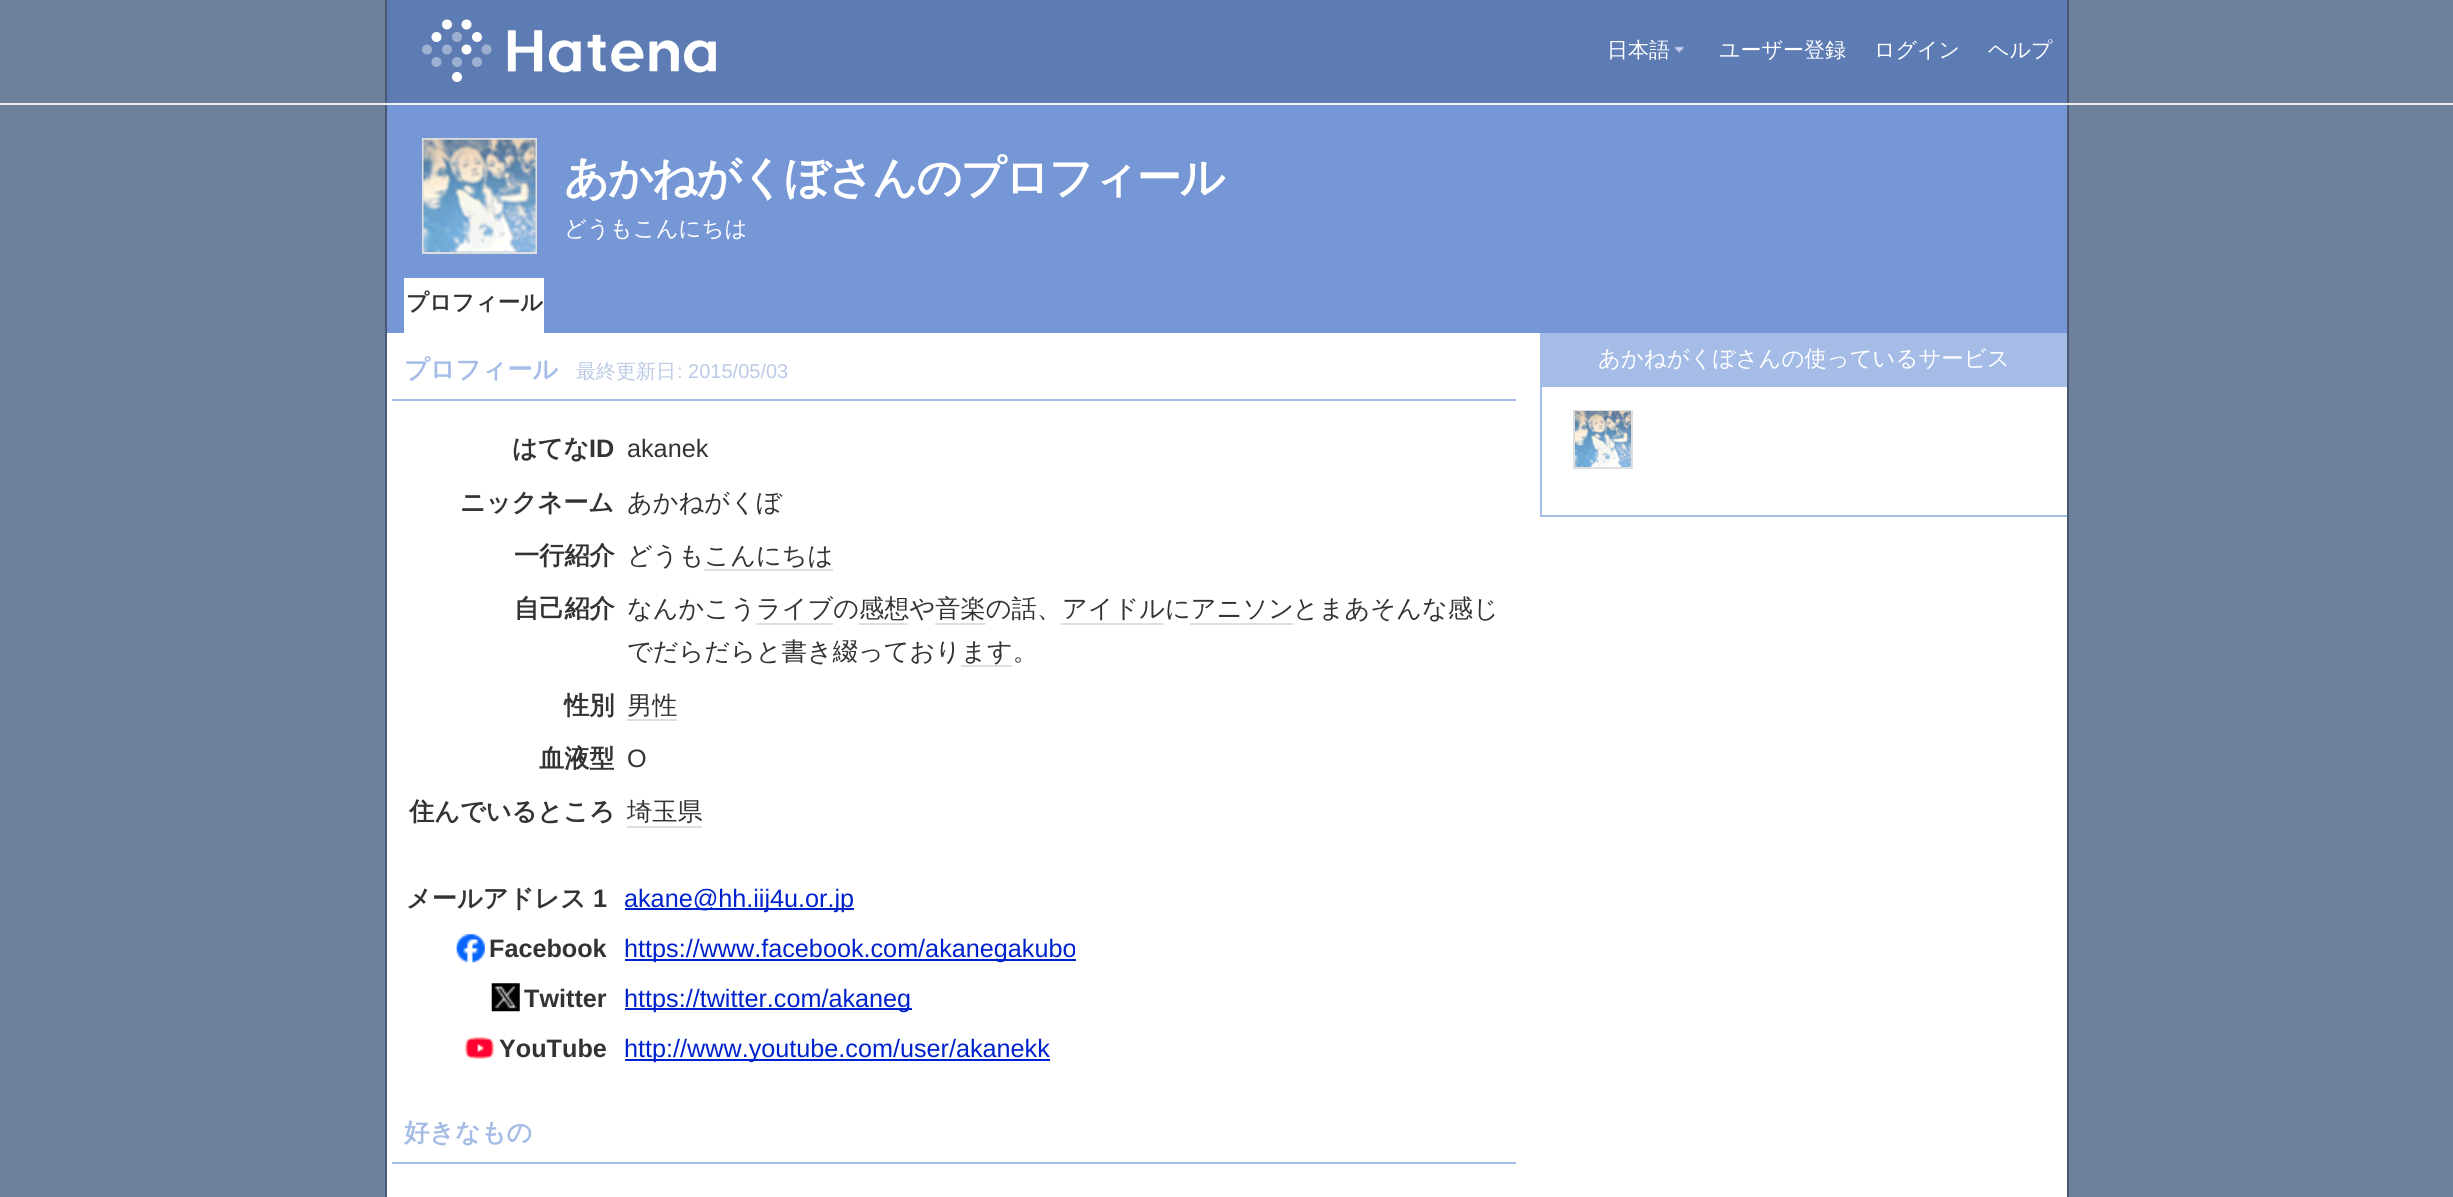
#include <cairo.h>
#include <math.h>
#include <stddef.h>

typedef struct { const char *family; double size; int italic, bold; unsigned color; } style_t;
static cairo_t *ctx;

static void ink(unsigned color) {
    cairo_set_source_rgb(ctx, (color >> 16) / 255.0, (color >> 8 & 255) / 255.0, (color & 255) / 255.0);
}

static void write(double x, double y, const char *s, const style_t *st) {
    cairo_select_font_face(ctx, st->family, st->italic ? CAIRO_FONT_SLANT_ITALIC : CAIRO_FONT_SLANT_NORMAL,
        st->bold ? CAIRO_FONT_WEIGHT_BOLD : CAIRO_FONT_WEIGHT_NORMAL);
    cairo_set_font_size(ctx, st->size);
    ink(st->color);
    cairo_move_to(ctx, x, y);
    cairo_show_text(ctx, s);
}

static void write_spaced(double x, double y, const char *s, double letter, double word) {
    cairo_move_to(ctx, x, y);
    while (*s) {
        char ch[5] = {0};
        int n = 0;
        do ch[n++] = *s++; while ((*s & 0xC0) == 0x80);
        cairo_show_text(ctx, ch);
        cairo_rel_move_to(ctx, letter + word * (*ch == ' '), 0);
    }
}

static void block(double x, double y, double w, double h, unsigned color) {
    ink(color);
    cairo_rectangle(ctx, x, y, w, h);
    cairo_fill(ctx);
}

static void paste(const char *path, double x, double y, double w, double h) {
    cairo_surface_t *image = cairo_image_surface_create_from_png(path);
    cairo_save(ctx);
    cairo_set_source_surface(ctx, image, x, y);
    cairo_rectangle(ctx, x, y, w, h);
    cairo_fill(ctx);
    cairo_restore(ctx);
    cairo_surface_destroy(image);
}

static const style_t s1 = {"WenQuanYi Zen Hei Medium", 21, 0, 0, 0xffffff};
static const style_t s2 = {"WenQuanYi Zen Hei Medium", 22.4, 0, 0, 0xffffff};
static const style_t s3 = {"WenQuanYi Zen Hei", 22.4, 0, 1, 0x333333};
static const style_t s4 = {"WenQuanYi Zen Hei", 25.2, 0, 1, 0xa5bce7};
static const style_t s5 = {"WenQuanYi Zen Hei Medium", 20, 0, 0, 0xbbcae6};
static const style_t s6 = {"Liberation Sans", 20, 0, 0, 0xbbcae6};
static const style_t s7 = {"WenQuanYi Zen Hei", 25.2, 0, 1, 0x333333};
static const style_t s8 = {"Liberation Sans", 25.2, 0, 1, 0x333333};
static const style_t s9 = {"Liberation Sans", 25.2, 0, 0, 0x333333};
static const style_t s10 = {"WenQuanYi Zen Hei Medium", 25.2, 0, 0, 0x333333};
static const style_t s11 = {"Liberation Sans", 25.2, 0, 0, 0x0022cc};

int main(void) {
    cairo_surface_t *surface = cairo_image_surface_create(CAIRO_FORMAT_RGB24, 2453, 1197);
    ctx = cairo_create(surface);
    cairo_font_options_t *options = cairo_font_options_create();
    cairo_font_options_set_hint_metrics(options, CAIRO_HINT_METRICS_OFF);
    cairo_font_options_set_hint_style(options, CAIRO_HINT_STYLE_NONE);
    cairo_set_font_options(ctx, options);
    cairo_set_miter_limit(ctx, 4);
    ink(0x6d819c);
    cairo_paint(ctx);
    block(0, 103, 2453, 2, 0xf0f0f0);
    block(387, 0, 1680, 103, 0x5e7cb4);
    block(2067, 0, 2, 103, 0x4a5973);
    block(385, 0, 2, 103, 0x4a5973);
    paste("pic1.png", 422, 19, 294, 63);
    paste("pic2.png", 1674, 46, 10, 7);
    write(1607, 57, "日本語", &s1);
    write(1719, 57, "ユーザー登録", &s1);
    write(1874, 57, "ログイン", &s1);
    write(1988, 57, "ヘルプ", &s1);
    block(387, 105, 1680, 228, 0x7697d6);
    cairo_rectangle(ctx, 423, 139, 113, 114);
    ink(0xdedede);
    cairo_stroke(ctx);
    paste("pic3.png", 423, 139, 113, 113);
    cairo_select_font_face(ctx, "WenQuanYi Zen Hei", CAIRO_FONT_SLANT_NORMAL, CAIRO_FONT_WEIGHT_BOLD);
    cairo_set_font_size(ctx, 44.75);
    ink(0xffffff);
    write_spaced(564, 193, "あかねがくぼさんのプロフィール", -1.75, 0);
    write(564, 236, "どうもこんにちは", &s2);
    block(404, 278, 140, 55, 0xffffff);
    write(406, 310, "プロフィール", &s3);
    block(387, 333, 1680, 864, 0xffffff);
    block(2067, 105, 2, 1092, 0x4a5973);
    block(385, 105, 2, 1092, 0x4a5973);
    block(392, 399, 1124, 2, 0xa5bce7);
    write(404, 378, "プロフィール", &s4);
    write(576, 378, "最終更新日", &s5);
    write(677, 378, ": 2015/05/03", &s6);
    write(512, 457, "はてな", &s7);
    write(589, 457, "ID", &s8);
    write(627, 457, "akanek", &s9);
    write(460, 511, "ニックネーム", &s7);
    write(627, 511, "あかねがくぼ", &s10);
    write(514, 564, "一行紹介", &s7);
    write(627, 564, "どうもこんにちは", &s10);
    block(704, 569, 129, 2, 0xdedede);
    write(514, 617, "自己紹介", &s7);
    write(627, 617, "なんかこうライブの感想や音楽の話、アイドルにアニソン", &s10);
    write(1293, 617, "とまあそんな感じ", &s10);
    block(756, 623, 77, 2, 0xdedede);
    block(859, 623, 49, 2, 0xdedede);
    block(935, 623, 50, 2, 0xdedede);
    block(1061, 623, 103, 2, 0xdedede);
    block(1190, 623, 103, 2, 0xdedede);
    write(627, 660, "でだらだらと書き綴っております。", &s10);
    block(961, 665, 51, 2, 0xdedede);
    write(564, 714, "性別", &s7);
    write(627, 714, "男性", &s10);
    block(627, 719, 50, 2, 0xdedede);
    write(539, 767, "血液型", &s7);
    write(627, 767, "O", &s9);
    write(409, 820, "住んでいるところ", &s7);
    write(627, 820, "埼玉県", &s10);
    block(627, 826, 75, 2, 0xdedede);
    write(406, 907, "メールアドレス", &s7);
    write(593, 907, "1", &s8);
    block(625, 908, 229, 2, 0x0022cc);
    write(624, 907, "akane@hh.iij4u.or.jp", &s11);
    paste("pic4.png", 456, 934, 29, 29);
    write(489, 957, "Facebook", &s8);
    block(625, 959, 451, 2, 0x0022cc);
    write(624, 957, "https://www.facebook.com/akanegakubo", &s11);
    paste("pic5.png", 491, 983, 29, 29);
    write(524, 1007, "Twitter", &s8);
    block(625, 1008, 287, 2, 0x0022cc);
    write(624, 1007, "https://twitter.com/akaneg", &s11);
    paste("pic6.png", 465, 1037, 29, 22);
    write(499, 1057, "YouTube", &s8);
    block(625, 1059, 425, 2, 0x0022cc);
    write(624, 1057, "http://www.youtube.com/user/akanekk", &s11);
    block(392, 1162, 1124, 2, 0xa5bce7);
    write(404, 1141, "好きなもの", &s4);
    block(1540, 515, 527, 2, 0xa5bce7);
    block(1540, 333, 2, 183, 0xa5bce7);
    block(1542, 333, 525, 54, 0xa5bce7);
    write(1598, 366, "あかねがくぼさんの使っているサービス", &s2);
    cairo_rectangle(ctx, 1574, 411, 58, 57);
    ink(0xdedede);
    cairo_stroke(ctx);
    paste("pic7.png", 1575, 411, 56, 56);
    cairo_surface_write_to_png(surface, "screenshot.png");
    cairo_font_options_destroy(options);
    cairo_destroy(ctx);
    cairo_surface_destroy(surface);
    return 0;
}
